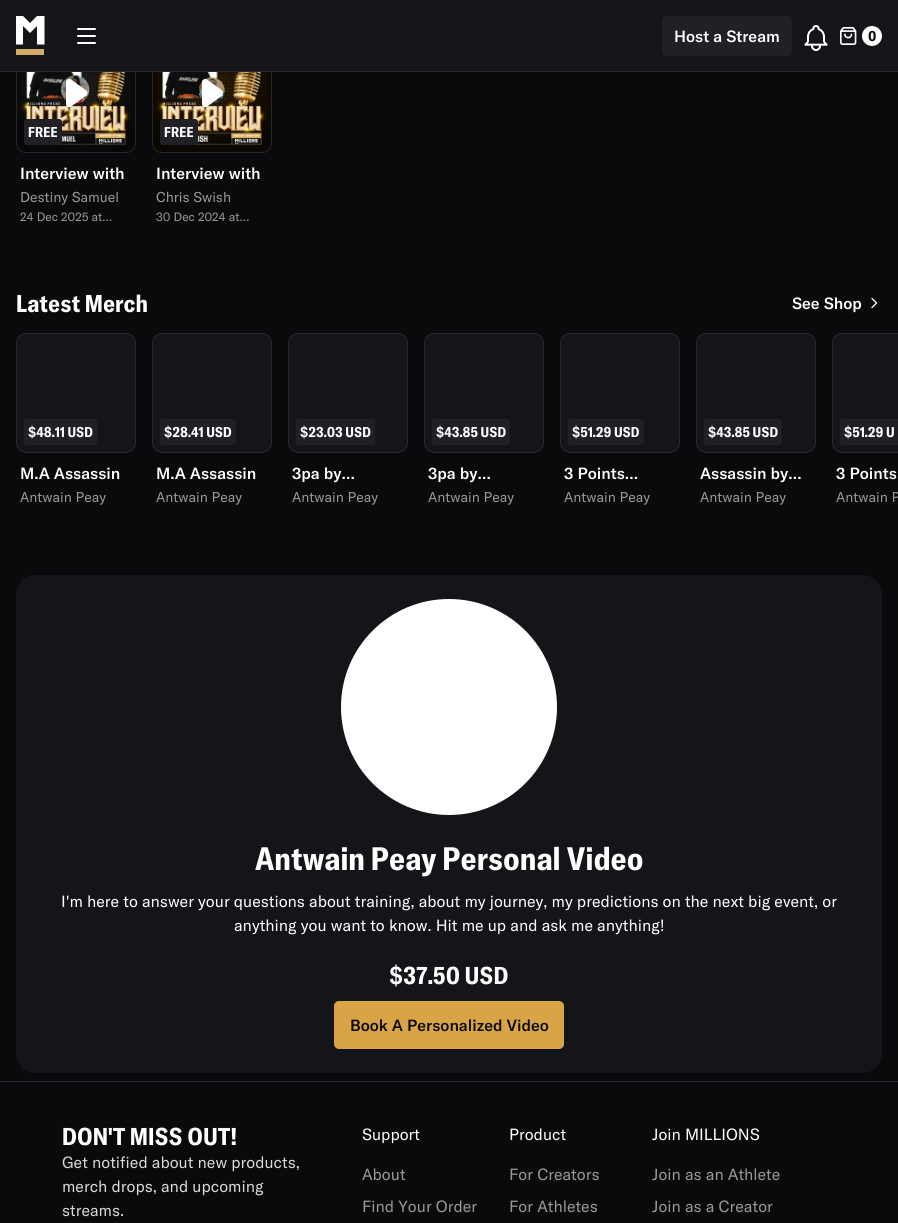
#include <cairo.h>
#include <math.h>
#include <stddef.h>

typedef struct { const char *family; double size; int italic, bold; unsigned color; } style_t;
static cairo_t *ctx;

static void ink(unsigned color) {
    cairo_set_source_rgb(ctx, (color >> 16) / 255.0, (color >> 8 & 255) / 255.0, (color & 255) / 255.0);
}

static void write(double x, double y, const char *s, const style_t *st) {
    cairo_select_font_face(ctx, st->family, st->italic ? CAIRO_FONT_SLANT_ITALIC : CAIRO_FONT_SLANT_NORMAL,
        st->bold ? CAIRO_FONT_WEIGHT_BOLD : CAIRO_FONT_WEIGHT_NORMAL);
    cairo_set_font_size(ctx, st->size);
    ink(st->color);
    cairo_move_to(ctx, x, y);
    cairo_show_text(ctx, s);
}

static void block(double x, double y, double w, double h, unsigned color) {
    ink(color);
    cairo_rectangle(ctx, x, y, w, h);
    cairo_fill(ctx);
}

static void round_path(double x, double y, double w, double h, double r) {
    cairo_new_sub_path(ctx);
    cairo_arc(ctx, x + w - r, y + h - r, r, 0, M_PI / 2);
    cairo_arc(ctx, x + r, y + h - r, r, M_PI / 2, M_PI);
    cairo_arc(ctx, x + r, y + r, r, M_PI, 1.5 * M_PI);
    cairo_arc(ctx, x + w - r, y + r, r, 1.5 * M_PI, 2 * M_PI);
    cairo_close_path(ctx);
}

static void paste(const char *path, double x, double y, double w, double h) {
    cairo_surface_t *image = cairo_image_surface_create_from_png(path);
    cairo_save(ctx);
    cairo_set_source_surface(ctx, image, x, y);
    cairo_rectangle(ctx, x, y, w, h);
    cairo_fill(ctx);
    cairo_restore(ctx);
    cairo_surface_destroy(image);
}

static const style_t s1 = {"GT America Medium", 16, 0, 0, 0xffffff};
static const style_t s2 = {"GT America", 14, 0, 1, 0x0a0a0c};
static const style_t s3 = {"GT America", 14, 0, 1, 0xffffff};
static const style_t s4 = {"GT America", 14, 0, 0, 0x999999};
static const style_t s5 = {"GT America", 12, 0, 0, 0x999999};
static const style_t s6 = {"GT America", 24, 0, 1, 0xffffff};
static const style_t s7 = {"GT America", 32, 0, 1, 0xffffff};
static const style_t s8 = {"GT America", 16, 0, 0, 0xffffff};
static const style_t s9 = {"GT America Medium", 16, 0, 0, 0x0a0a0c};
static const style_t s10 = {"GT America", 16, 0, 0, 0xd9d9d9};
static const style_t s11 = {"GT America", 16, 0, 0, 0x999999};

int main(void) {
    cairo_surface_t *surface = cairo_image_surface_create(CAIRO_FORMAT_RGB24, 898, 1223);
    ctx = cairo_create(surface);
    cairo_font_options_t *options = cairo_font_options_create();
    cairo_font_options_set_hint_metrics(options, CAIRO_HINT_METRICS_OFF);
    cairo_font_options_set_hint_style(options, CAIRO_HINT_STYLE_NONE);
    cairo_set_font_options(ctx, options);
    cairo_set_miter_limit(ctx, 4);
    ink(0x0a0a0c);
    cairo_paint(ctx);
    ink(0x141519);
    round_path(16.5, 33.5, 119, 119, 9.5);
    cairo_fill_preserve(ctx);
    ink(0x27282d);
    cairo_set_line_width(ctx, 1);
    cairo_stroke(ctx);
    ink(0x141519);
    round_path(152.5, 33.5, 119, 119, 9.5);
    cairo_fill_preserve(ctx);
    ink(0x27282d);
    cairo_stroke(ctx);
    block(0, 0, 898, 71, 0x141519);
    block(0, 71, 898, 1, 0x27282d);
    ink(0xffffff);
    cairo_new_path(ctx);
    cairo_move_to(ctx, 23, 16);
    cairo_line_to(ctx, 30, 23);
    cairo_line_to(ctx, 37, 16);
    cairo_line_to(ctx, 44.5, 16);
    cairo_line_to(ctx, 44.5, 44.5);
    cairo_line_to(ctx, 37, 44.5);
    cairo_line_to(ctx, 37, 26);
    cairo_line_to(ctx, 30, 33);
    cairo_line_to(ctx, 23, 26);
    cairo_line_to(ctx, 23, 44.5);
    cairo_line_to(ctx, 16, 44.5);
    cairo_line_to(ctx, 16, 16);
    cairo_close_path(ctx);
    cairo_fill(ctx);
    block(16, 49, 28, 6, 0xd2ab64);
    ink(0xffffff);
    round_path(77, 28, 19, 2, 1);
    cairo_fill(ctx);
    round_path(77, 35, 19, 2, 1);
    cairo_fill(ctx);
    round_path(77, 42, 19, 2, 1);
    cairo_fill(ctx);
    ink(0x202127);
    round_path(662, 16, 130, 40, 5);
    cairo_fill(ctx);
    write(674, 42, "Host a Stream", &s1);
    paste("pic1.png", 804, 25, 24, 26);
    paste("pic2.png", 840, 27, 17, 18);
    cairo_arc(ctx, 872, 36, 10, 0, 2 * M_PI);
    cairo_fill(ctx);
    write(868, 41, "0", &s2);
    paste("pic3.png", 17, 72, 118, 80);
    paste("pic4.png", 66, 79, 22, 28);
    ink(0x202127);
    round_path(24, 119, 38, 26, 3);
    cairo_fill(ctx);
    write(28, 137, "FREE", &s3);
    write(20, 179, "Interview with", &s1);
    write(20, 202, "Destiny Samuel", &s4);
    write(20, 221, "24 Dec 2025 at…", &s5);
    paste("pic5.png", 153, 72, 118, 80);
    paste("pic6.png", 202, 79, 22, 28);
    ink(0x202127);
    round_path(160, 119, 38, 26, 3);
    cairo_fill(ctx);
    write(164, 137, "FREE", &s3);
    write(156, 179, "Interview with", &s1);
    write(156, 202, "Chris Swish", &s4);
    write(156, 221, "30 Dec 2024 at…", &s5);
    write(16, 312, "Latest Merch", &s6);
    write(792, 309, "See Shop", &s1);
    cairo_new_path(ctx);
    cairo_move_to(ctx, 872, 298.5);
    cairo_line_to(ctx, 876.5, 303);
    cairo_line_to(ctx, 872, 307.5);
    cairo_set_line_width(ctx, 1.3);
    cairo_set_line_cap(ctx, CAIRO_LINE_CAP_ROUND);
    cairo_set_line_join(ctx, CAIRO_LINE_JOIN_ROUND);
    cairo_stroke(ctx);
    ink(0x141519);
    round_path(16.5, 333.5, 119, 119, 9.5);
    cairo_fill_preserve(ctx);
    ink(0x27282d);
    cairo_set_line_width(ctx, 1);
    cairo_set_line_cap(ctx, CAIRO_LINE_CAP_BUTT);
    cairo_set_line_join(ctx, CAIRO_LINE_JOIN_MITER);
    cairo_stroke(ctx);
    ink(0x202127);
    round_path(24, 419, 73, 26, 3);
    cairo_fill(ctx);
    write(28, 437, "$48.11 USD", &s3);
    write(20, 479, "M.A Assassin", &s1);
    write(20, 502, "Antwain Peay", &s4);
    ink(0x141519);
    round_path(152.5, 333.5, 119, 119, 9.5);
    cairo_fill_preserve(ctx);
    ink(0x27282d);
    cairo_stroke(ctx);
    ink(0x202127);
    round_path(160, 419, 76, 26, 3);
    cairo_fill(ctx);
    write(164, 437, "$28.41 USD", &s3);
    write(156, 479, "M.A Assassin", &s1);
    write(156, 502, "Antwain Peay", &s4);
    ink(0x141519);
    round_path(288.5, 333.5, 119, 119, 9.5);
    cairo_fill_preserve(ctx);
    ink(0x27282d);
    cairo_stroke(ctx);
    ink(0x202127);
    round_path(296, 419, 79, 26, 3);
    cairo_fill(ctx);
    write(300, 437, "$23.03 USD", &s3);
    write(292, 479, "3pa by…", &s1);
    write(292, 502, "Antwain Peay", &s4);
    ink(0x141519);
    round_path(424.5, 333.5, 119, 119, 9.5);
    cairo_fill_preserve(ctx);
    ink(0x27282d);
    cairo_stroke(ctx);
    ink(0x202127);
    round_path(432, 419, 78, 26, 3);
    cairo_fill(ctx);
    write(436, 437, "$43.85 USD", &s3);
    write(428, 479, "3pa by…", &s1);
    write(428, 502, "Antwain Peay", &s4);
    ink(0x141519);
    round_path(560.5, 333.5, 119, 119, 9.5);
    cairo_fill_preserve(ctx);
    ink(0x27282d);
    cairo_stroke(ctx);
    ink(0x202127);
    round_path(568, 419, 76, 26, 3);
    cairo_fill(ctx);
    write(572, 437, "$51.29 USD", &s3);
    write(564, 479, "3 Points…", &s1);
    write(564, 502, "Antwain Peay", &s4);
    ink(0x141519);
    round_path(696.5, 333.5, 119, 119, 9.5);
    cairo_fill_preserve(ctx);
    ink(0x27282d);
    cairo_stroke(ctx);
    ink(0x202127);
    round_path(704, 419, 78, 26, 3);
    cairo_fill(ctx);
    write(708, 437, "$43.85 USD", &s3);
    write(700, 479, "Assassin by…", &s1);
    write(700, 502, "Antwain Peay", &s4);
    ink(0x141519);
    cairo_new_path(ctx);
    cairo_move_to(ctx, 842, 333);
    cairo_line_to(ctx, 898, 333);
    cairo_line_to(ctx, 898, 453);
    cairo_line_to(ctx, 842, 453);
    cairo_curve_to(ctx, 836.5, 453, 832, 448.5, 832, 443);
    cairo_line_to(ctx, 832, 343);
    cairo_curve_to(ctx, 832, 337.5, 836.5, 333, 842, 333);
    cairo_close_path(ctx);
    cairo_fill(ctx);
    round_path(832.5, 333.5, 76, 119, 9.5);
    ink(0x27282d);
    cairo_stroke(ctx);
    ink(0x202127);
    cairo_new_path(ctx);
    cairo_move_to(ctx, 843, 419);
    cairo_line_to(ctx, 898, 419);
    cairo_line_to(ctx, 898, 445);
    cairo_line_to(ctx, 843, 445);
    cairo_curve_to(ctx, 841.5, 445, 840, 443.5, 840, 442);
    cairo_line_to(ctx, 840, 422);
    cairo_curve_to(ctx, 840, 420.5, 841.5, 419, 843, 419);
    cairo_close_path(ctx);
    cairo_fill(ctx);
    write(844, 437, "$51.29 U", &s3);
    write(836, 479, "3 Points", &s1);
    write(836, 502, "Antwain P", &s4);
    ink(0x141519);
    round_path(16, 575, 866, 498, 20);
    cairo_fill(ctx);
    ink(0xffffff);
    cairo_arc(ctx, 449, 707, 108, 0, 2 * M_PI);
    cairo_fill(ctx);
    write(255, 870, "Antwain Peay Personal Video", &s7);
    write(61, 907, "I'm here to answer your questions about training, about my journey, my predictions on the next big event, or", &s8);
    write(234, 931, "anything you want to know. Hit me up and ask me anything!", &s8);
    write(389, 984, "$37.50 USD", &s6);
    ink(0xd8a445);
    round_path(334, 1001, 230, 48, 5);
    cairo_fill(ctx);
    write(350, 1031, "Book A Personalized Video", &s9);
    block(0, 1081, 898, 1, 0x27282d);
    write(62, 1145, "DON'T MISS OUT!", &s6);
    write(62, 1168, "Get notified about new products,", &s10);
    write(62, 1192, "merch drops, and upcoming", &s10);
    write(62, 1216, "streams.", &s10);
    write(362, 1140, "Support", &s8);
    write(362, 1180, "About", &s11);
    write(362, 1212, "Find Your Order", &s11);
    write(509, 1140, "Product", &s8);
    write(509, 1180, "For Creators", &s11);
    write(509, 1212, "For Athletes", &s11);
    write(652, 1140, "Join MILLIONS", &s8);
    write(652, 1180, "Join as an Athlete", &s11);
    write(652, 1212, "Join as a Creator", &s11);
    cairo_surface_write_to_png(surface, "screenshot.png");
    cairo_font_options_destroy(options);
    cairo_destroy(ctx);
    cairo_surface_destroy(surface);
    return 0;
}
